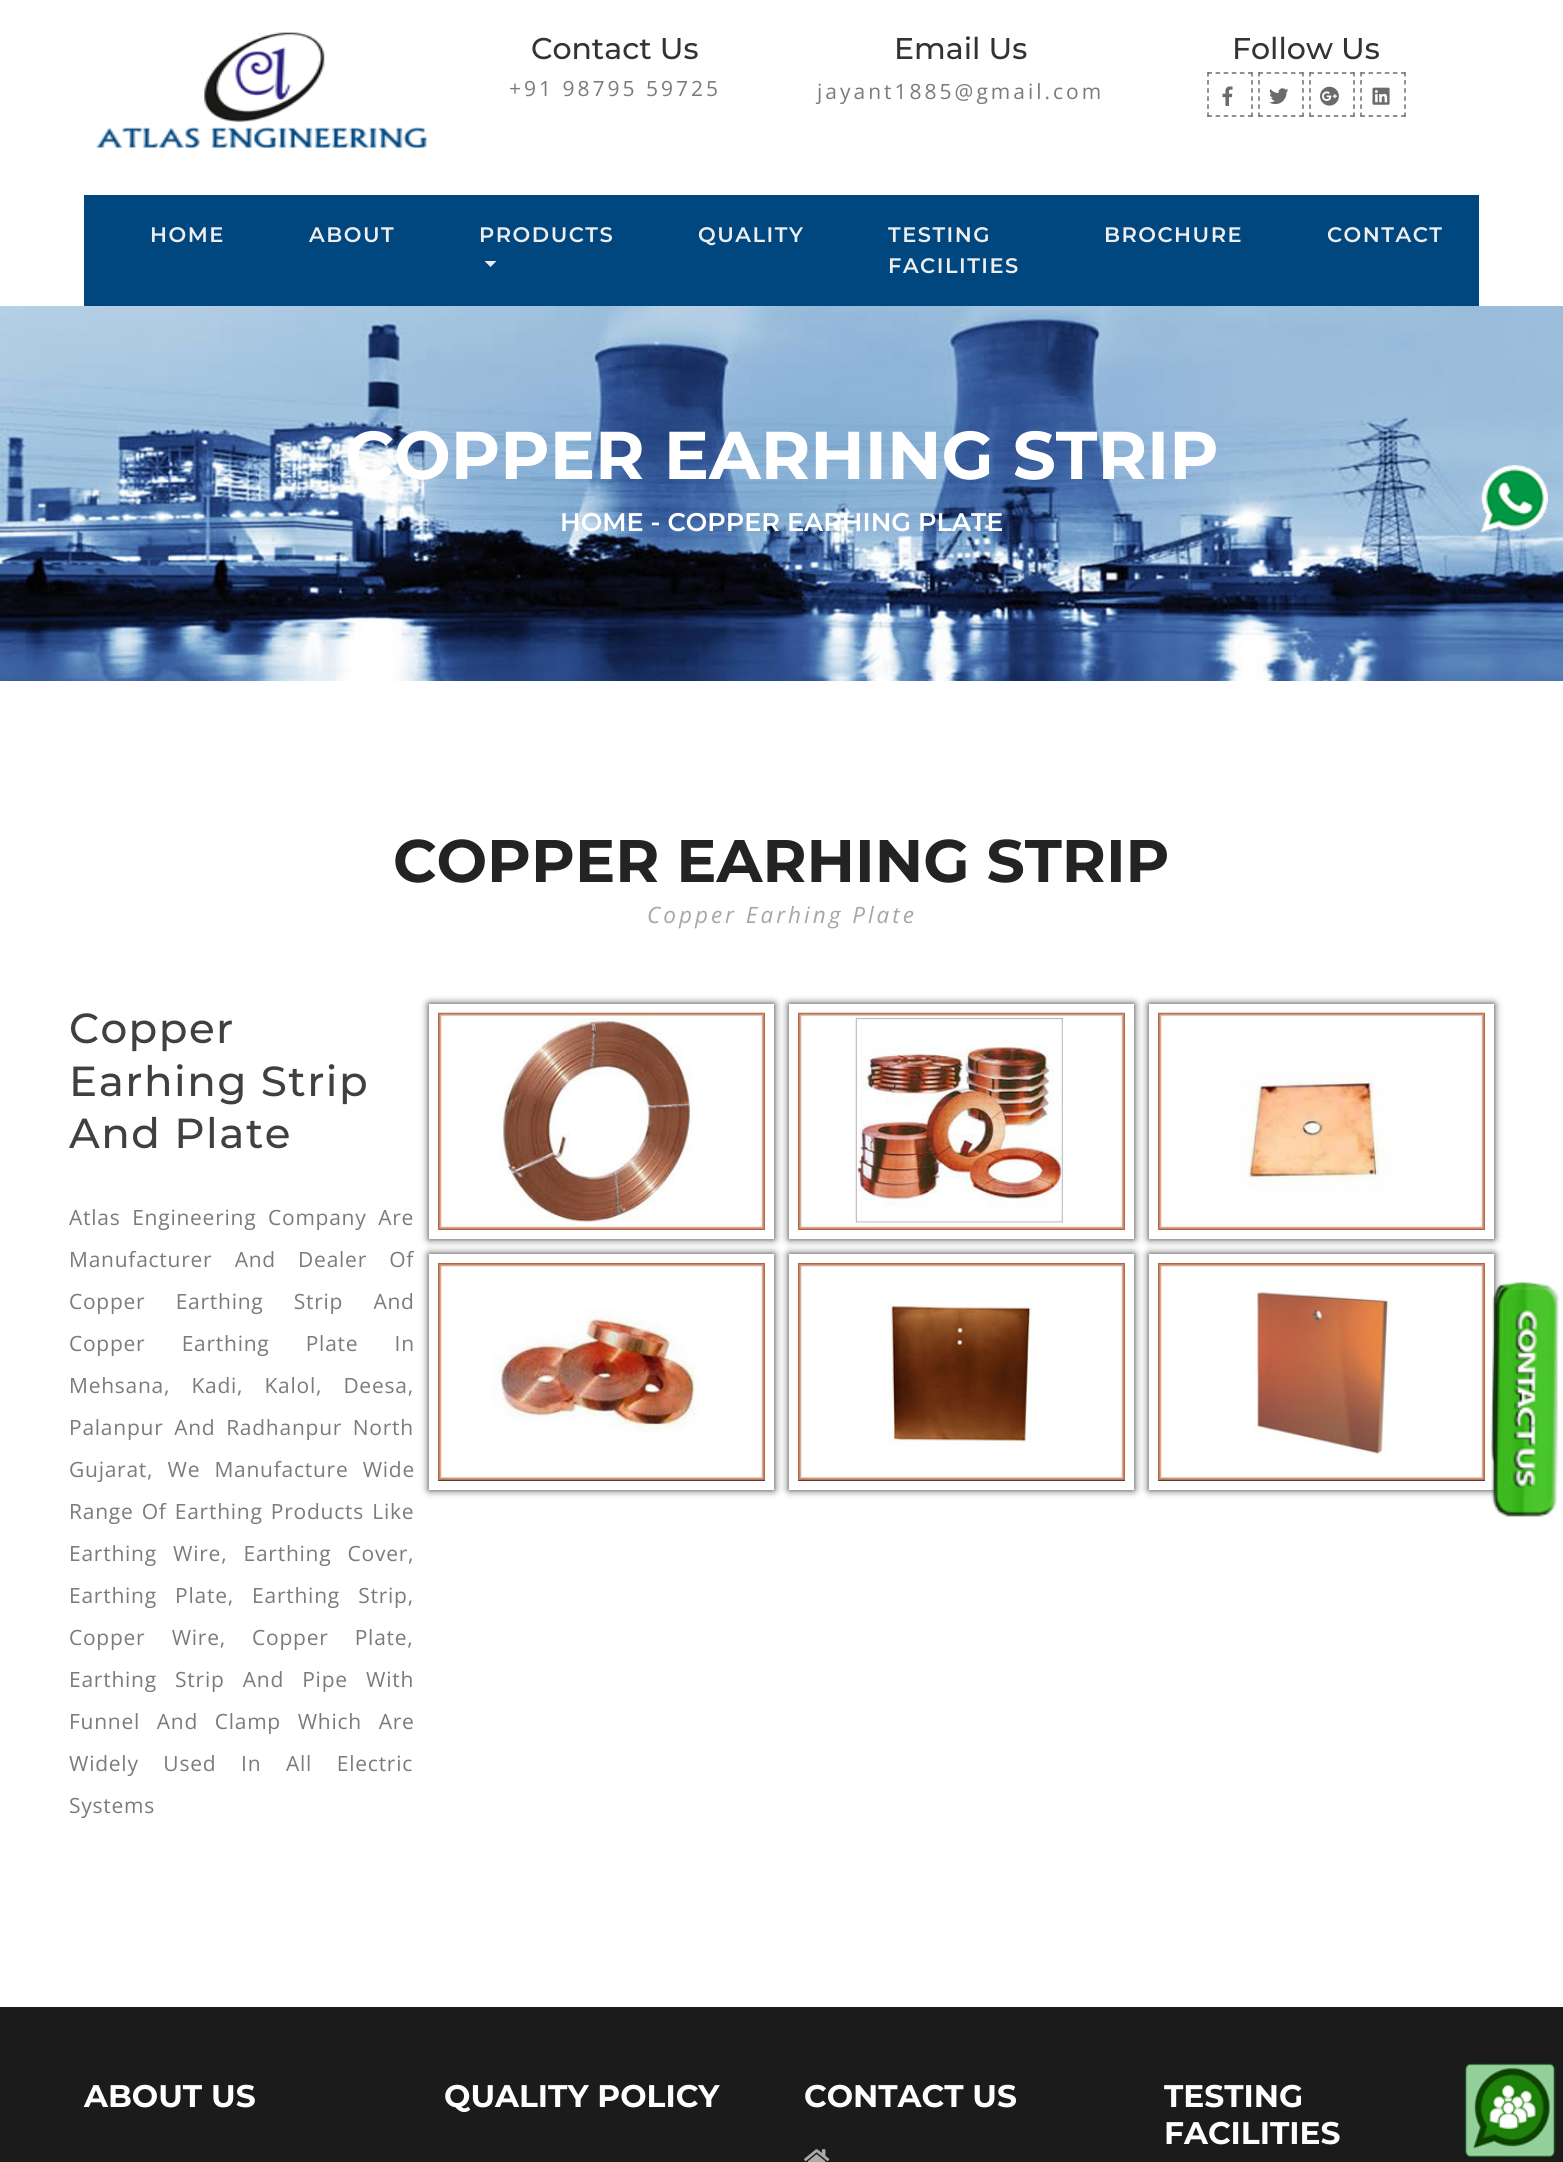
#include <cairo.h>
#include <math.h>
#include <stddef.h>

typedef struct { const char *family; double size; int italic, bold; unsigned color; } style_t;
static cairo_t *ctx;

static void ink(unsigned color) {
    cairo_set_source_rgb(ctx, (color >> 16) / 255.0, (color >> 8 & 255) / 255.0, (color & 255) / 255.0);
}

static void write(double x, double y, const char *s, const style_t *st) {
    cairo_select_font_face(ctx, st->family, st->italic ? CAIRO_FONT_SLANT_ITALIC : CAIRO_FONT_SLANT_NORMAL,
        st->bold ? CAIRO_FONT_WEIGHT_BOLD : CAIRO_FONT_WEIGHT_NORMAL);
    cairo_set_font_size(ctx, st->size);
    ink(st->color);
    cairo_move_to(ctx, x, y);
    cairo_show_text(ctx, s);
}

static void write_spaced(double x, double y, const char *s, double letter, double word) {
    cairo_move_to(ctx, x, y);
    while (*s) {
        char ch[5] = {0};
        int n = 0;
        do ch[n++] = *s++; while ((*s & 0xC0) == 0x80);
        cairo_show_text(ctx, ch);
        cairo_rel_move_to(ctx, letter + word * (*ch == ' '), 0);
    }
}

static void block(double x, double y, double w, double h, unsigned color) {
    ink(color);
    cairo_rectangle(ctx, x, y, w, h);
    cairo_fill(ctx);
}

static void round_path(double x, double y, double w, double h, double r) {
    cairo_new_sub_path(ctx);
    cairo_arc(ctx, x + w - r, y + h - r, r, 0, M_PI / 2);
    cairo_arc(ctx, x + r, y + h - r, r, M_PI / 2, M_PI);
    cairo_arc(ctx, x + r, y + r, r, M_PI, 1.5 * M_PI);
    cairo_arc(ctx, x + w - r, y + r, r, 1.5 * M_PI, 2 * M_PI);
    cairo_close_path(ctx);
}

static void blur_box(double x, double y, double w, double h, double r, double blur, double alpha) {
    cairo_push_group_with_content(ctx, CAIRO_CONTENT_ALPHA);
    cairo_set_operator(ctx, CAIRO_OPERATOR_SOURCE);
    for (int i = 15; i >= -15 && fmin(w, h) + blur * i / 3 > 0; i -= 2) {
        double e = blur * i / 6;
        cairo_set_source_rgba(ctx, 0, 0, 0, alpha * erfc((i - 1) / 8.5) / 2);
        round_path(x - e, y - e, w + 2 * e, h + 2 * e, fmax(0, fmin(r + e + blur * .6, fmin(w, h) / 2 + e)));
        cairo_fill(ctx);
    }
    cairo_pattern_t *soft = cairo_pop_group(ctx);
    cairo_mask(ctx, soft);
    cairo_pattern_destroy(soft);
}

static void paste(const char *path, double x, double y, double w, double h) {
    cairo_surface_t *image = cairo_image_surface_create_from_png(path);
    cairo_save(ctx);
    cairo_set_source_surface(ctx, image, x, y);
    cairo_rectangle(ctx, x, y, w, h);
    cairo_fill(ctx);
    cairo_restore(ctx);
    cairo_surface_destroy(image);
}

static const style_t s1 = {"Montserrat Medium", 30, 0, 0, 0x333333};
static const style_t s2 = {"Montserrat", 67.5, 0, 1, 0xffffff};
static const style_t s3 = {"Montserrat SemiBold", 25.5, 0, 0, 0xffffff};
static const style_t s4 = {"Montserrat", 60, 0, 1, 0x232323};
static const style_t s5 = {"Montserrat", 31.25, 0, 1, 0xffffff};

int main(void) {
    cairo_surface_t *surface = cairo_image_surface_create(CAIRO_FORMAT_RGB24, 1563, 2162);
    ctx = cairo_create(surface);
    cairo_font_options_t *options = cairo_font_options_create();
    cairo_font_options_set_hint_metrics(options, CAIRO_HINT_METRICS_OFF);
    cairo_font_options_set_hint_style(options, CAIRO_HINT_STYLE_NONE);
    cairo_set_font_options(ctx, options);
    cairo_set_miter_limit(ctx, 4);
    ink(0xffffff);
    cairo_paint(ctx);
    paste("pic1.png", 96, 32, 331, 116);
    write(531, 59, "Contact Us", &s1);
    cairo_select_font_face(ctx, "Open Sans", CAIRO_FONT_SLANT_NORMAL, CAIRO_FONT_WEIGHT_NORMAL);
    cairo_set_font_size(ctx, 21);
    ink(0x7b7b7b);
    write_spaced(509, 96, "+91 98795 59725", 3, 0);
    write(894, 59, "Email Us", &s1);
    cairo_select_font_face(ctx, "Open Sans", CAIRO_FONT_SLANT_NORMAL, CAIRO_FONT_WEIGHT_NORMAL);
    cairo_set_font_size(ctx, 21);
    ink(0x7b7b7b);
    write_spaced(817, 99, "jayant1885@gmail.com", 3, 0);
    write(1232, 59, "Follow Us", &s1);
    cairo_new_path(ctx);
    cairo_move_to(ctx, 1207.5, 73);
    cairo_line_to(ctx, 1252.5, 73);
    cairo_move_to(ctx, 1252, 72);
    cairo_line_to(ctx, 1252, 117);
    cairo_move_to(ctx, 1207.5, 116);
    cairo_line_to(ctx, 1252.5, 116);
    cairo_move_to(ctx, 1208, 72);
    cairo_line_to(ctx, 1208, 117);
    ink(0x6b6b6b);
    cairo_set_line_width(ctx, 1.5);
    cairo_set_dash(ctx, (double[]){4.5, 3.6}, 2, 0);
    cairo_stroke(ctx);
    paste("pic2.png", 1222, 86, 11, 20);
    cairo_new_path(ctx);
    cairo_move_to(ctx, 1258.5, 73);
    cairo_line_to(ctx, 1303.5, 73);
    cairo_move_to(ctx, 1303, 72);
    cairo_line_to(ctx, 1303, 117);
    cairo_move_to(ctx, 1258.5, 116);
    cairo_line_to(ctx, 1303.5, 116);
    cairo_move_to(ctx, 1259, 72);
    cairo_line_to(ctx, 1259, 117);
    cairo_stroke(ctx);
    paste("pic3.png", 1269, 88, 20, 17);
    cairo_new_path(ctx);
    cairo_move_to(ctx, 1309.5, 73);
    cairo_line_to(ctx, 1354.5, 73);
    cairo_move_to(ctx, 1354, 72);
    cairo_line_to(ctx, 1354, 117);
    cairo_move_to(ctx, 1309.5, 116);
    cairo_line_to(ctx, 1354.5, 116);
    cairo_move_to(ctx, 1310, 72);
    cairo_line_to(ctx, 1310, 117);
    cairo_stroke(ctx);
    paste("pic4.png", 1320, 86, 19, 20);
    cairo_new_path(ctx);
    cairo_move_to(ctx, 1360.5, 73);
    cairo_line_to(ctx, 1405.5, 73);
    cairo_move_to(ctx, 1405, 72);
    cairo_line_to(ctx, 1405, 117);
    cairo_move_to(ctx, 1360.5, 116);
    cairo_line_to(ctx, 1405.5, 116);
    cairo_move_to(ctx, 1361, 72);
    cairo_line_to(ctx, 1361, 117);
    cairo_stroke(ctx);
    paste("pic5.png", 1372, 87, 18, 18);
    block(84, 195, 1395, 111, 0x00467f);
    cairo_select_font_face(ctx, "Montserrat SemiBold", CAIRO_FONT_SLANT_NORMAL, CAIRO_FONT_WEIGHT_NORMAL);
    cairo_set_font_size(ctx, 21);
    ink(0xeeeeee);
    write_spaced(150, 242, "HOME", 1.5, 0);
    write_spaced(309, 242, "ABOUT", 1.5, 0);
    write_spaced(479, 242, "PRODUCTS", 1.5, 0);
    cairo_new_path(ctx);
    cairo_move_to(ctx, 484.5, 261);
    cairo_line_to(ctx, 496.5, 261);
    cairo_line_to(ctx, 490.5, 267);
    cairo_close_path(ctx);
    cairo_fill(ctx);
    write_spaced(698, 242, "QUALITY", 1.5, 0);
    write_spaced(888, 242, "TESTING", 1.5, 0);
    write_spaced(888, 273, "FACILITIES", 1.5, 0);
    write_spaced(1104, 242, "BROCHURE", 1.5, 0);
    write_spaced(1327, 242, "CONTACT", 1.5, 0);
    paste("pic6.png", 0, 306, 1563, 375);
    write(345, 479, "COPPER EARHING STRIP", &s2);
    write(560, 531, "HOME - COPPER EARHING PLATE", &s3);
    paste("pic7.png", 1480, 465, 68, 68);
    write(393, 882, "COPPER EARHING STRIP", &s4);
    cairo_select_font_face(ctx, "Open Sans", CAIRO_FONT_SLANT_ITALIC, CAIRO_FONT_WEIGHT_NORMAL);
    cairo_set_font_size(ctx, 22.5);
    ink(0xa6a6a6);
    write_spaced(647, 923, "Copper Earhing Plate", 3, 0);
    cairo_select_font_face(ctx, "Montserrat Medium", CAIRO_FONT_SLANT_NORMAL, CAIRO_FONT_WEIGHT_NORMAL);
    cairo_set_font_size(ctx, 42);
    ink(0x404040);
    write_spaced(69, 1043, "Copper", 1.5, 0);
    write_spaced(69, 1096, "Earhing Strip", 1.5, 0);
    write_spaced(69, 1148, "And Plate", 1.5, 0);
    cairo_select_font_face(ctx, "Open Sans", CAIRO_FONT_SLANT_NORMAL, CAIRO_FONT_WEIGHT_NORMAL);
    cairo_set_font_size(ctx, 21);
    ink(0x7b7b7b);
    write_spaced(69, 1225, "Atlas Engineering Company Are", 0.75, 5.5);
    write_spaced(69, 1267, "Manufacturer And Dealer Of", 0.75, 16);
    write_spaced(69, 1309, "Copper Earthing Strip And", 0.75, 24);
    write_spaced(69, 1351, "Copper Earthing Plate In", 0.75, 30);
    write_spaced(69, 1393, "Mehsana, Kadi, Kalol, Deesa,", 0.75, 15);
    write_spaced(69, 1435, "Palanpur And Radhanpur North", 0.75, 4.5);
    write_spaced(69, 1477, "Gujarat, We Manufacture Wide", 0.75, 8);
    write_spaced(69, 1519, "Range Of Earthing Products Like", 0.75, 2);
    write_spaced(69, 1561, "Earthing Wire, Earthing Cover,", 0.75, 10);
    write_spaced(69, 1603, "Earthing Plate, Earthing Strip,", 0.75, 12);
    write_spaced(69, 1645, "Copper Wire, Copper Plate,", 0.75, 20);
    write_spaced(69, 1687, "Earthing Strip And Pipe With", 0.75, 12);
    write_spaced(69, 1729, "Funnel And Clamp Which Are", 0.75, 10.5);
    write_spaced(69, 1771, "Widely Used In All Electric", 0.75, 18.5);
    write_spaced(69, 1813, "Systems", 0.75, 0);
    cairo_save(ctx);
    cairo_set_fill_rule(ctx, CAIRO_FILL_RULE_EVEN_ODD);
    cairo_new_path(ctx);
    cairo_move_to(ctx, 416, 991);
    cairo_line_to(ctx, 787, 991);
    cairo_line_to(ctx, 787, 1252);
    cairo_line_to(ctx, 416, 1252);
    cairo_close_path(ctx);
    cairo_move_to(ctx, 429, 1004);
    cairo_line_to(ctx, 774, 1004);
    cairo_line_to(ctx, 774, 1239);
    cairo_line_to(ctx, 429, 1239);
    cairo_close_path(ctx);
    cairo_clip(ctx);
    ink(0x333333);
    blur_box(429, 1004, 345, 235, 0, 4, 1);
    cairo_restore(ctx);
    paste("pic8.png", 438, 1012, 327, 218);
    ink(0x333333);
    blur_box(429, 1254, 345, 236, 0, 4, 1);
    cairo_rectangle(ctx, 433.5, 1258.5, 336, 227);
    ink(0xffffff);
    cairo_set_line_width(ctx, 9);
    cairo_set_dash(ctx, NULL, 0, 0);
    cairo_stroke(ctx);
    paste("pic9.png", 438, 1263, 327, 218);
    cairo_save(ctx);
    cairo_set_fill_rule(ctx, CAIRO_FILL_RULE_EVEN_ODD);
    cairo_new_path(ctx);
    cairo_move_to(ctx, 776, 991);
    cairo_line_to(ctx, 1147, 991);
    cairo_line_to(ctx, 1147, 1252);
    cairo_line_to(ctx, 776, 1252);
    cairo_close_path(ctx);
    cairo_move_to(ctx, 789, 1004);
    cairo_line_to(ctx, 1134, 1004);
    cairo_line_to(ctx, 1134, 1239);
    cairo_line_to(ctx, 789, 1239);
    cairo_close_path(ctx);
    cairo_clip(ctx);
    ink(0x333333);
    blur_box(789, 1004, 345, 235, 0, 4, 1);
    cairo_restore(ctx);
    paste("pic10.png", 798, 1012, 327, 218);
    ink(0x333333);
    blur_box(789, 1254, 345, 236, 0, 4, 1);
    cairo_rectangle(ctx, 793.5, 1258.5, 336, 227);
    ink(0xffffff);
    cairo_stroke(ctx);
    paste("pic11.png", 798, 1263, 327, 218);
    cairo_save(ctx);
    cairo_set_fill_rule(ctx, CAIRO_FILL_RULE_EVEN_ODD);
    cairo_new_path(ctx);
    cairo_move_to(ctx, 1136, 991);
    cairo_line_to(ctx, 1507, 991);
    cairo_line_to(ctx, 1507, 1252);
    cairo_line_to(ctx, 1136, 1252);
    cairo_close_path(ctx);
    cairo_move_to(ctx, 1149, 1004);
    cairo_line_to(ctx, 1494, 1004);
    cairo_line_to(ctx, 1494, 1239);
    cairo_line_to(ctx, 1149, 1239);
    cairo_close_path(ctx);
    cairo_clip(ctx);
    ink(0x333333);
    blur_box(1149, 1004, 345, 235, 0, 4, 1);
    cairo_restore(ctx);
    paste("pic12.png", 1158, 1012, 327, 218);
    ink(0x333333);
    blur_box(1149, 1254, 345, 236, 0, 4, 1);
    cairo_rectangle(ctx, 1153.5, 1258.5, 336, 227);
    ink(0xffffff);
    cairo_stroke(ctx);
    paste("pic13.png", 1158, 1263, 327, 218);
    paste("pic14.png", 1490, 1282, 51, 184);
    paste("pic15.png", 1491, 1283, 69, 234);
    block(0, 2007, 1563, 155, 0x1b1b1b);
    write(84, 2107, "ABOUT US", &s5);
    write(444, 2107, "QUALITY POLICY", &s5);
    write(804, 2107, "CONTACT US", &s5);
    paste("pic16.png", 804, 2149, 26, 13);
    write(1164, 2107, "TESTING", &s5);
    write(1164, 2144, "FACILITIES", &s5);
    paste("pic17.png", 1464, 2063, 92, 95);
    cairo_surface_write_to_png(surface, "screenshot.png");
    cairo_font_options_destroy(options);
    cairo_destroy(ctx);
    cairo_surface_destroy(surface);
    return 0;
}
